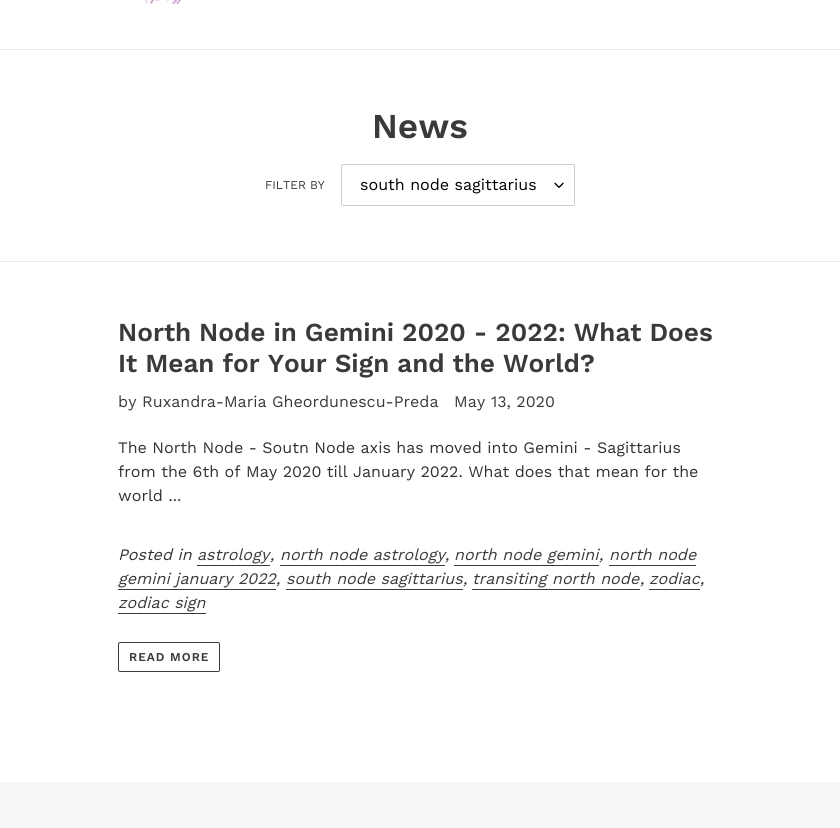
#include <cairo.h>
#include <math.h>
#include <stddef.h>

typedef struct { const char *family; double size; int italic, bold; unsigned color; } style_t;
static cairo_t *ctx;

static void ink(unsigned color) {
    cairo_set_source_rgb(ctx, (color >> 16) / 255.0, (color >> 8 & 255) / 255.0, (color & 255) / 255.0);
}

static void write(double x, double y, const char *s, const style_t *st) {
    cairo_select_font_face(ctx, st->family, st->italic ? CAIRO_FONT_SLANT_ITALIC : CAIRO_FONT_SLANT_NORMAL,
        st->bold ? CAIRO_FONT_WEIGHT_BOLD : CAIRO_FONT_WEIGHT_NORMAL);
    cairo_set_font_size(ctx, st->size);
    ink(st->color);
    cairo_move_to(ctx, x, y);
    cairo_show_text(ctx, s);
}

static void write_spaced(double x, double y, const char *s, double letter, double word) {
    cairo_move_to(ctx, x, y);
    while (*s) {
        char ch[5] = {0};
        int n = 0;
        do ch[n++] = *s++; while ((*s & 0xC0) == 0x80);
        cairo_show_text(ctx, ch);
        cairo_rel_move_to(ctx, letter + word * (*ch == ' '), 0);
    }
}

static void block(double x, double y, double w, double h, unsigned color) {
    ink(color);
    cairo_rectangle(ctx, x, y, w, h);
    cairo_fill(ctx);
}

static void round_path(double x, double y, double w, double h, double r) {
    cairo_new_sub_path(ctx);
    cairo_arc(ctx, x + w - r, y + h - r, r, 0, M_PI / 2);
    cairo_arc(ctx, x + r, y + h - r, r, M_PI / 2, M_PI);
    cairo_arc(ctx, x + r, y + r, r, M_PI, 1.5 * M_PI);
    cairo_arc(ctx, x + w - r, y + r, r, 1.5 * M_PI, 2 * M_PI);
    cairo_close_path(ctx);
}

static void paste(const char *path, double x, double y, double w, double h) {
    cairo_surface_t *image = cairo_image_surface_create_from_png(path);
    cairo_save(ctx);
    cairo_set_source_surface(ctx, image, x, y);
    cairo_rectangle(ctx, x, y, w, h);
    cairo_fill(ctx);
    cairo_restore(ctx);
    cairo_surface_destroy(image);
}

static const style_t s1 = {"Work Sans SemiBold", 35, 0, 0, 0x3a3a3a};
static const style_t s2 = {"Work Sans", 12, 0, 0, 0x3a3a3a};
static const style_t s3 = {"Work Sans", 16, 0, 0, 0x000000};
static const style_t s4 = {"Work Sans SemiBold", 26, 0, 0, 0x3a3a3a};
static const style_t s5 = {"Work Sans", 16, 0, 0, 0x3a3a3a};
static const style_t s6 = {"Work Sans", 16, 0, 0, 0x333232};
static const style_t s7 = {"Work Sans", 16, 1, 0, 0x333232};
static const style_t s8 = {"Work Sans", 16, 1, 0, 0x3a3a3a};

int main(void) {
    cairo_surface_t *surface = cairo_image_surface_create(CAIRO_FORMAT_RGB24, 840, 828);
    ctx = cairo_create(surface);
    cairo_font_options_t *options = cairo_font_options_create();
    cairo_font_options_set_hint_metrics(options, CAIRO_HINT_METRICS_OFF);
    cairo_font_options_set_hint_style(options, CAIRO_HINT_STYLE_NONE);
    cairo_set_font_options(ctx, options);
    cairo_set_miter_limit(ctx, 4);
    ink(0xffffff);
    cairo_paint(ctx);
    block(0, 49, 840, 1, 0xebebeb);
    paste("pic1.png", 145, 0, 36, 4);
    write(372, 138, "News", &s1);
    write(265, 189, "FILTER BY", &s2);
    paste("pic2.png", 554, 182, 10, 6);
    round_path(341.5, 164.5, 233, 41, 1.5);
    ink(0xcccccc);
    cairo_set_line_width(ctx, 1);
    cairo_stroke(ctx);
    write(360, 190, "south node sagittarius", &s3);
    block(0, 261, 840, 1, 0xebebeb);
    write(118, 341, "North Node in Gemini 2020 - 2022: What Does", &s4);
    write(118, 372, "It Mean for Your Sign and the World?", &s4);
    write(118, 407, "by Ruxandra-Maria Gheordunescu-Preda", &s5);
    write(454, 407, "May 13, 2020", &s5);
    write(118, 453, "The North Node - Soutn Node axis has moved into Gemini - Sagittarius", &s6);
    write(118, 477, "from the 6th of May 2020 till January 2022. What does that mean for the", &s6);
    write(118, 501, "world ...", &s6);
    write(118, 560, "Posted in", &s7);
    write(197, 560, "astrology", &s8);
    block(197, 565, 73, 1, 0x3a3a3a);
    write(280, 560, "north node astrology", &s8);
    block(280, 565, 165, 1, 0x3a3a3a);
    write(454, 560, "north node gemini", &s8);
    block(454, 565, 145, 1, 0x3a3a3a);
    write(609, 560, "north node", &s8);
    block(609, 565, 87, 1, 0x3a3a3a);
    write(270, 560, ",", &s7);
    write(445, 560, ",", &s7);
    write(599, 560, ",", &s7);
    write(118, 584, "gemini january 2022", &s8);
    block(118, 589, 158, 1, 0x3a3a3a);
    write(276, 584, ",", &s7);
    write(286, 584, "south node sagittarius", &s8);
    block(286, 589, 177, 1, 0x3a3a3a);
    write(463, 584, ",", &s7);
    write(472, 584, "transiting north node", &s8);
    block(472, 589, 168, 1, 0x3a3a3a);
    write(640, 584, ",", &s7);
    write(649, 584, "zodiac", &s8);
    block(649, 589, 51, 1, 0x3a3a3a);
    write(700, 584, ",", &s7);
    write(118, 608, "zodiac sign", &s8);
    block(118, 613, 88, 1, 0x3a3a3a);
    round_path(118.5, 642.5, 101, 29, 1.5);
    cairo_stroke(ctx);
    cairo_select_font_face(ctx, "Work Sans SemiBold", CAIRO_FONT_SLANT_NORMAL, CAIRO_FONT_WEIGHT_NORMAL);
    cairo_set_font_size(ctx, 12);
    write_spaced(129, 661, "READ MORE", 1, 0);
    block(0, 782, 840, 46, 0xf6f6f6);
    cairo_surface_write_to_png(surface, "screenshot.png");
    cairo_font_options_destroy(options);
    cairo_destroy(ctx);
    cairo_surface_destroy(surface);
    return 0;
}
